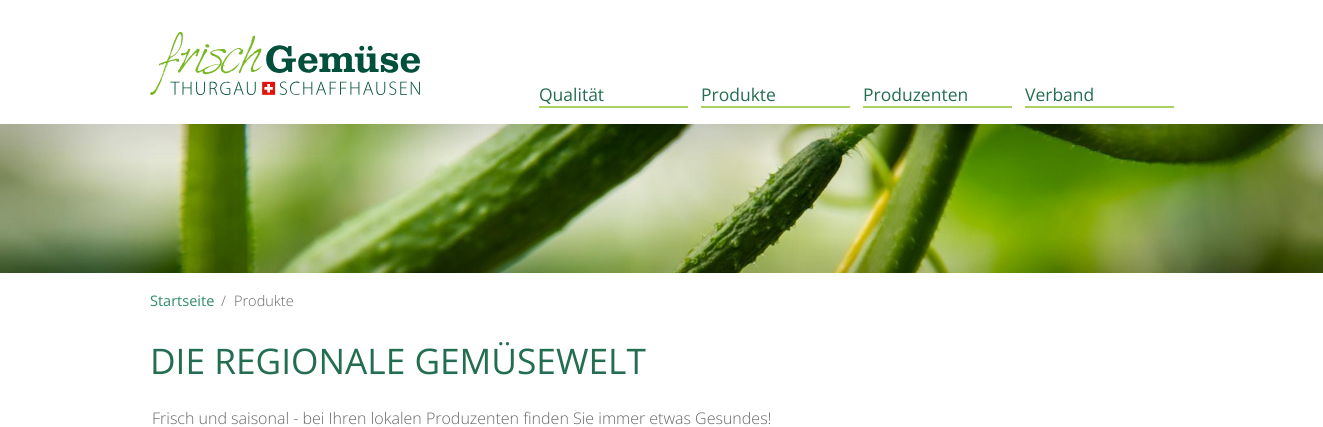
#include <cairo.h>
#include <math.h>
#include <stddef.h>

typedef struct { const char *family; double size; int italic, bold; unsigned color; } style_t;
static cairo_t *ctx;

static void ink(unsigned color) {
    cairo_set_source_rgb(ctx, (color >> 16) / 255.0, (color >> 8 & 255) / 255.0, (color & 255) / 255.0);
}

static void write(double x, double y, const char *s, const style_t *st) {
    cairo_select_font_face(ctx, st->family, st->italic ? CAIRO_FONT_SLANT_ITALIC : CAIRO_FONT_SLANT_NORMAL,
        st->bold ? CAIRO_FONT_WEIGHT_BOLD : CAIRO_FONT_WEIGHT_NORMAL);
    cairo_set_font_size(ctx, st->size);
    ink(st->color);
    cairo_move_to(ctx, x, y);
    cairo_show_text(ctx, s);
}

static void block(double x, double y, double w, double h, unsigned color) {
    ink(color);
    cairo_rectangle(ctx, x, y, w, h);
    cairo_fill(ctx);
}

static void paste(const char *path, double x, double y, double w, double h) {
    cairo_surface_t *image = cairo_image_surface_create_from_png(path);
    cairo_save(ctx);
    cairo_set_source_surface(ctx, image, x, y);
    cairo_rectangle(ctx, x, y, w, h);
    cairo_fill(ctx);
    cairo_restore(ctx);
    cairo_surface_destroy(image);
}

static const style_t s1 = {"Open Sans", 17.5, 0, 0, 0x236d50};
static const style_t s2 = {"Open Sans", 14.5, 0, 0, 0x2d8c66};
static const style_t s3 = {"Open Sans Light", 14.5, 0, 0, 0x666666};
static const style_t s4 = {"Open Sans", 35.25, 0, 0, 0x236d50};
static const style_t s5 = {"Open Sans Light", 16, 0, 0, 0x666666};

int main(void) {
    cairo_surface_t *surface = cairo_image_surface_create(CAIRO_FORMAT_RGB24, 1323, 427);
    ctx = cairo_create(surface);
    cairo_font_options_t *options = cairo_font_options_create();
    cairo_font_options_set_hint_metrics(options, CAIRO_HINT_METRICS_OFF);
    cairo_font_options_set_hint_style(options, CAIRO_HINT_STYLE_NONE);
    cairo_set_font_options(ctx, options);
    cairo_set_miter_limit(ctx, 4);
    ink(0xffffff);
    cairo_paint(ctx);
    paste("pic1.png", 150, 32, 270, 63);
    block(539, 106, 149, 2, 0xacd160);
    write(539, 101, "Qualität", &s1);
    block(701, 106, 149, 2, 0xacd160);
    write(701, 101, "Produkte", &s1);
    block(863, 106, 149, 2, 0xacd160);
    write(863, 101, "Produzenten", &s1);
    block(1025, 106, 149, 2, 0xacd160);
    write(1025, 101, "Verband", &s1);
    paste("pic2.png", 0, 124, 1323, 149);
    write(150, 306, "Startseite", &s2);
    write(221, 306, "/", &s3);
    write(234, 306, "Produkte", &s3);
    write(150, 374, "DIE REGIONALE GEMÜSEWELT", &s4);
    write(152, 424, "Frisch und saisonal - bei Ihren lokalen Produzenten finden Sie immer etwas Gesundes!", &s5);
    cairo_surface_write_to_png(surface, "screenshot.png");
    cairo_font_options_destroy(options);
    cairo_destroy(ctx);
    cairo_surface_destroy(surface);
    return 0;
}
